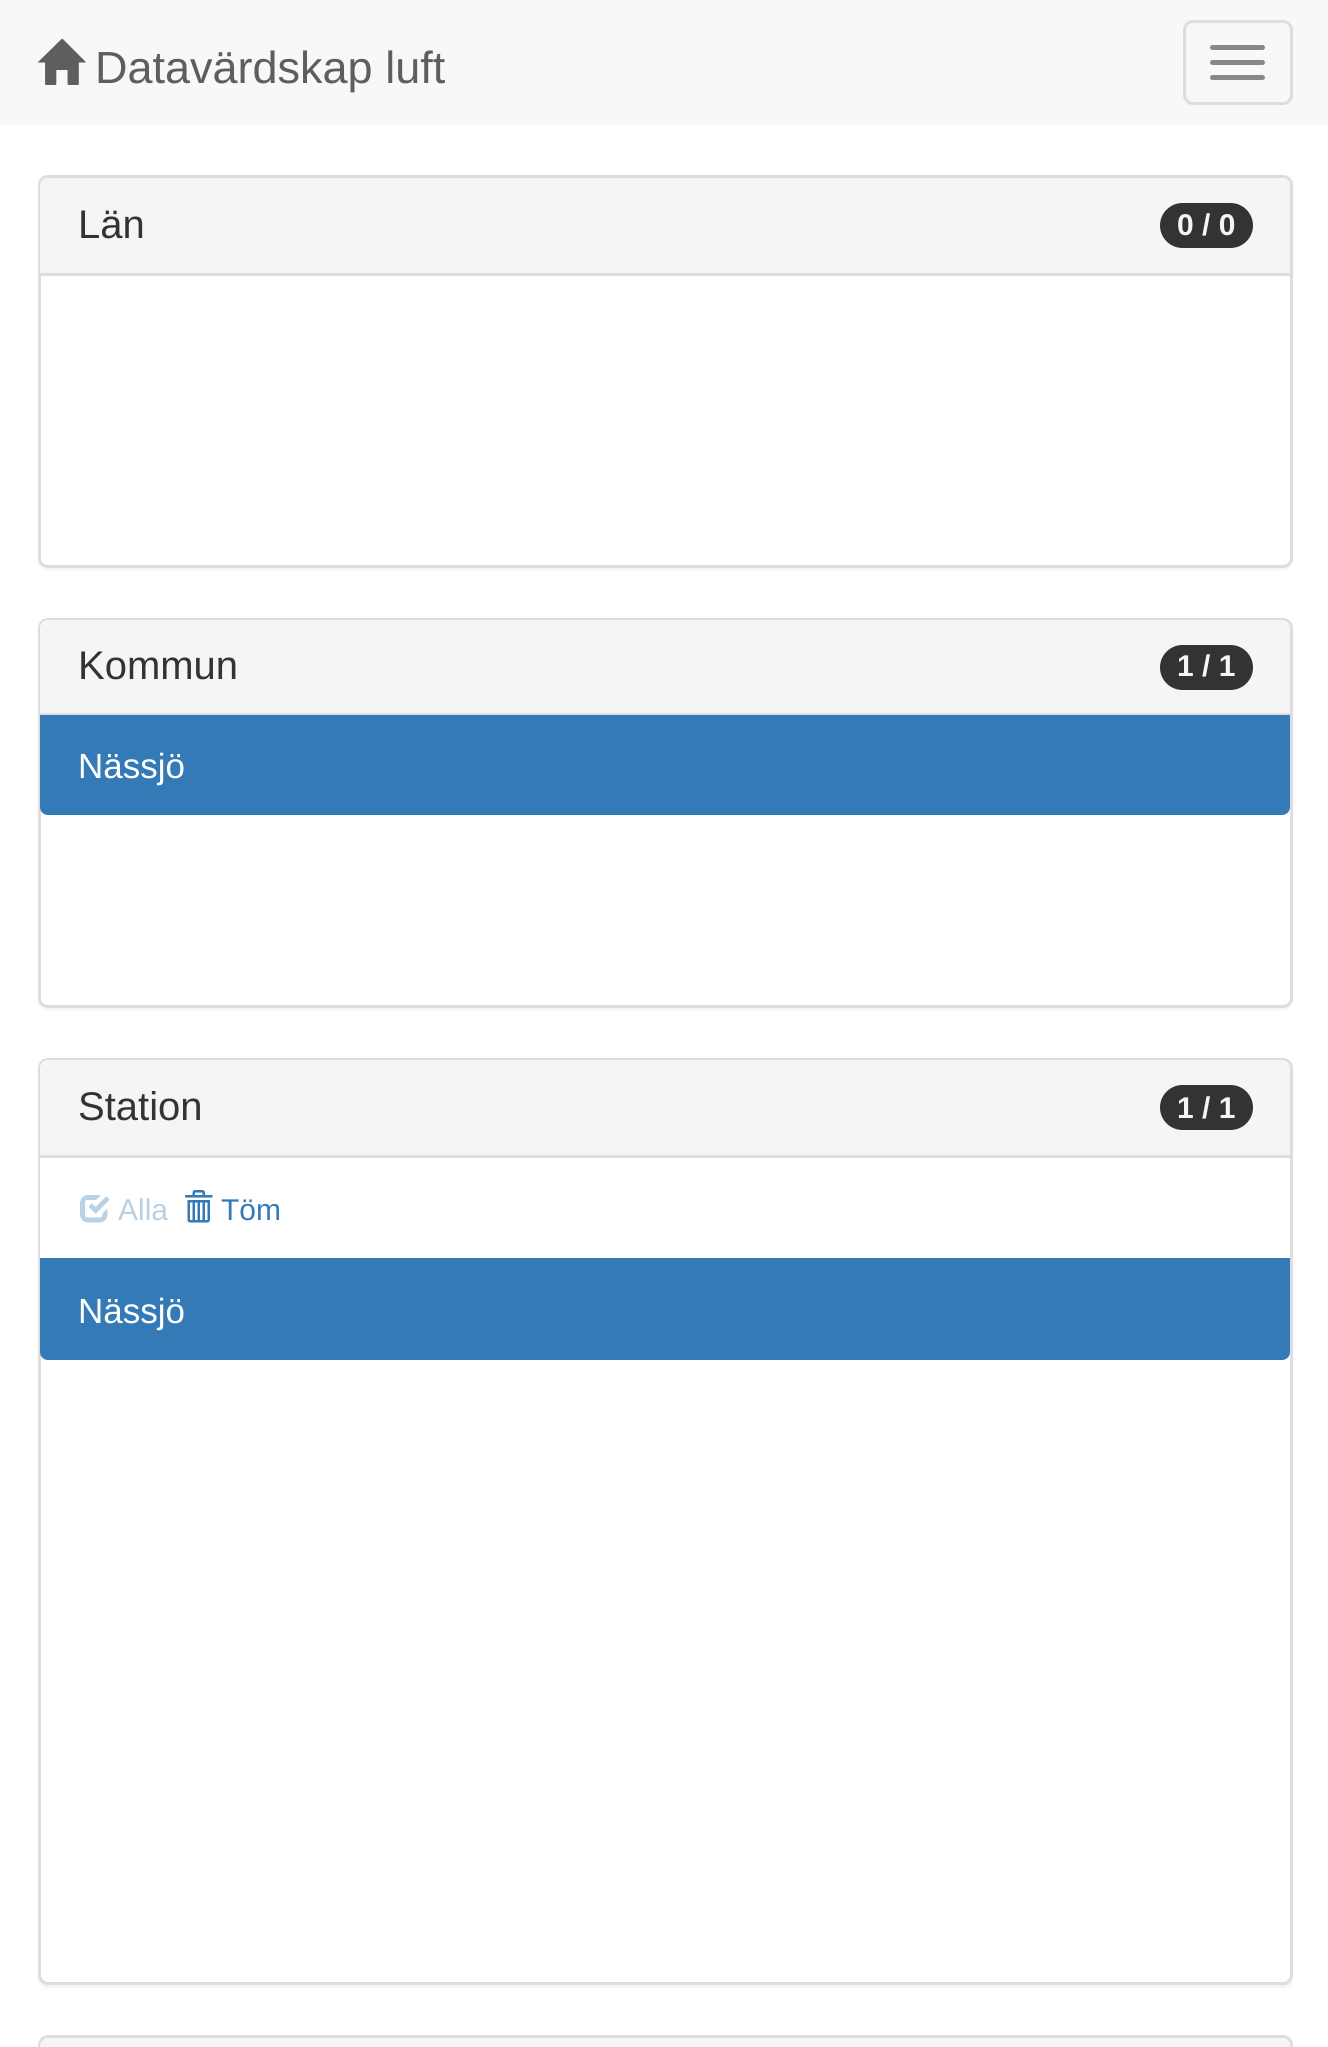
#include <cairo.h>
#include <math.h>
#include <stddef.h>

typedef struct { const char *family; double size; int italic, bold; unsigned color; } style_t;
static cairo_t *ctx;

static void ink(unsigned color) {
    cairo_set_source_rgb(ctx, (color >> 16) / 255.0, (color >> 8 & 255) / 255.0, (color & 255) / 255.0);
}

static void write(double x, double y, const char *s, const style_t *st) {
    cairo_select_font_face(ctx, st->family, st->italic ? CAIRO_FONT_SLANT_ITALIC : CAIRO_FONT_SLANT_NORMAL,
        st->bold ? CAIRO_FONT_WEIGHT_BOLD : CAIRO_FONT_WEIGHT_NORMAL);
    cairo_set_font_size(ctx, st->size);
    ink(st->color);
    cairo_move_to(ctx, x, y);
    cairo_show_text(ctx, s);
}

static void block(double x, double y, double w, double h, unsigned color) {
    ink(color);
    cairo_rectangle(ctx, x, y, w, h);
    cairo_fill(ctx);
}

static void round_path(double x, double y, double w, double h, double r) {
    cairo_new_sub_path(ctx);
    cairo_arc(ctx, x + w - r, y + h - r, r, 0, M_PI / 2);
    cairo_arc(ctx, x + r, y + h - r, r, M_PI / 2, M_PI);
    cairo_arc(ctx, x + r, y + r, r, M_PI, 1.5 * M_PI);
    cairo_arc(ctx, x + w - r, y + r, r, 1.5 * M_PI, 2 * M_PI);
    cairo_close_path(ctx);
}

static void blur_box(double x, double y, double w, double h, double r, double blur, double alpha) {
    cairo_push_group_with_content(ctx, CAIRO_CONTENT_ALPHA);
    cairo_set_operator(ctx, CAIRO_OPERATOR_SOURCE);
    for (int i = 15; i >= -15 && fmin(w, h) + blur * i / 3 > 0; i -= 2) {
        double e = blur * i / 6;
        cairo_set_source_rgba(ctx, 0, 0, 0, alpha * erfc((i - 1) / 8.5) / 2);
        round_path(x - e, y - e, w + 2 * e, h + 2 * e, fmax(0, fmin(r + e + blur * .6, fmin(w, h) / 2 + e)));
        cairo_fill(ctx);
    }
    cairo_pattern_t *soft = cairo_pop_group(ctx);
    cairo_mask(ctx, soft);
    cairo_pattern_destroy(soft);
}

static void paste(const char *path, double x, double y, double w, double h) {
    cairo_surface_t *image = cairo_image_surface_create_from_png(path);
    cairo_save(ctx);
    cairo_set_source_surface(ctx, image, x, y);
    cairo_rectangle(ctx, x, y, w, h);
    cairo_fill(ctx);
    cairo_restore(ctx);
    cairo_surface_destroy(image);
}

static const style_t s1 = {"Liberation Sans", 45, 0, 0, 0x5e5e5e};
static const style_t s2 = {"Liberation Sans", 40, 0, 0, 0x333333};
static const style_t s3 = {"Liberation Sans", 30, 0, 1, 0xf5f5f5};
static const style_t s4 = {"Liberation Sans", 35, 0, 0, 0xffffff};
static const style_t s5 = {"Liberation Sans", 30, 0, 0, 0xb8d0e6};
static const style_t s6 = {"Liberation Sans", 30, 0, 0, 0x337ab7};

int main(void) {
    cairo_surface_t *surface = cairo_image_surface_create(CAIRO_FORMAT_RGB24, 1328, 2047);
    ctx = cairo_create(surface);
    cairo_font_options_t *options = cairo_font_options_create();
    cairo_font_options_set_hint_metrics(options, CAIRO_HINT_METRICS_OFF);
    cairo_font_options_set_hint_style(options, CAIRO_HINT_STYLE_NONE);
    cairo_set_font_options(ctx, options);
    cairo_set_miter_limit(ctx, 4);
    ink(0xffffff);
    cairo_paint(ctx);
    block(0, 0, 1328, 125, 0xf8f8f8);
    paste("pic1.png", 38, 38, 48, 47);
    write(95, 83, "Datavärdskap luft", &s1);
    round_path(1184.5, 21.5, 107, 82, 8.5);
    ink(0xdddddd);
    cairo_set_line_width(ctx, 3);
    cairo_stroke(ctx);
    ink(0x888888);
    round_path(1210, 45, 55, 5, 2.5);
    cairo_fill(ctx);
    round_path(1210, 60, 55, 5, 2.5);
    cairo_fill(ctx);
    round_path(1210, 75, 55, 5, 2.5);
    cairo_fill(ctx);
    ink(0x000000);
    blur_box(38, 178, 1255, 392, 10, 1, 0.05);
    ink(0xffffff);
    round_path(39.5, 176.5, 1252, 390, 8.5);
    cairo_fill_preserve(ctx);
    ink(0xdddddd);
    cairo_stroke(ctx);
    ink(0xf5f5f5);
    cairo_new_path(ctx);
    cairo_move_to(ctx, 48, 178);
    cairo_line_to(ctx, 1282, 178);
    cairo_curve_to(ctx, 1286.5, 178, 1290, 181.5, 1290, 186);
    cairo_line_to(ctx, 1290, 275);
    cairo_line_to(ctx, 40, 275);
    cairo_line_to(ctx, 40, 186);
    cairo_curve_to(ctx, 40, 181.5, 43.5, 178, 48, 178);
    cairo_close_path(ctx);
    cairo_fill(ctx);
    block(40, 273, 1250, 3, 0xdddddd);
    write(78, 238, "Län", &s2);
    round_path(1160, 203, 93, 45, 22.5);
    cairo_fill(ctx);
    write(1177, 235, "0 / 0", &s3);
    ink(0x000000);
    blur_box(38, 620, 1255, 390, 10, 1, 0.05);
    ink(0xffffff);
    round_path(39.5, 619.5, 1252, 387, 8.5);
    cairo_fill_preserve(ctx);
    ink(0xdddddd);
    cairo_stroke(ctx);
    ink(0xf5f5f5);
    cairo_new_path(ctx);
    cairo_move_to(ctx, 48, 620);
    cairo_line_to(ctx, 1282, 620);
    cairo_curve_to(ctx, 1286.5, 620, 1290, 623.5, 1290, 628);
    cairo_line_to(ctx, 1290, 715);
    cairo_line_to(ctx, 40, 715);
    cairo_line_to(ctx, 40, 628);
    cairo_curve_to(ctx, 40, 623.5, 43.5, 620, 48, 620);
    cairo_close_path(ctx);
    cairo_fill(ctx);
    block(40, 713, 1250, 2, 0xdddddd);
    write(78, 679, "Kommun", &s2);
    round_path(1160, 645, 93, 45, 22.5);
    cairo_fill(ctx);
    write(1177, 676, "1 / 1", &s3);
    ink(0x337ab7);
    cairo_new_path(ctx);
    cairo_move_to(ctx, 40, 715);
    cairo_line_to(ctx, 1290, 715);
    cairo_line_to(ctx, 1290, 807);
    cairo_curve_to(ctx, 1290, 811.5, 1286.5, 815, 1282, 815);
    cairo_line_to(ctx, 48, 815);
    cairo_curve_to(ctx, 43.5, 815, 40, 811.5, 40, 807);
    cairo_close_path(ctx);
    cairo_fill(ctx);
    write(78, 778, "Nässjö", &s4);
    ink(0x000000);
    blur_box(38, 1060, 1255, 928, 10, 1, 0.05);
    ink(0xffffff);
    round_path(39.5, 1059.5, 1252, 924, 8.5);
    cairo_fill_preserve(ctx);
    ink(0xdddddd);
    cairo_stroke(ctx);
    ink(0xf5f5f5);
    cairo_new_path(ctx);
    cairo_move_to(ctx, 48, 1060);
    cairo_line_to(ctx, 1282, 1060);
    cairo_curve_to(ctx, 1286.5, 1060, 1290, 1063.5, 1290, 1068);
    cairo_line_to(ctx, 1290, 1158);
    cairo_line_to(ctx, 40, 1158);
    cairo_line_to(ctx, 40, 1068);
    cairo_curve_to(ctx, 40, 1063.5, 43.5, 1060, 48, 1060);
    cairo_close_path(ctx);
    cairo_fill(ctx);
    block(40, 1155, 1250, 3, 0xdddddd);
    write(78, 1120, "Station", &s2);
    round_path(1160, 1085, 93, 45, 22.5);
    cairo_fill(ctx);
    write(1177, 1118, "1 / 1", &s3);
    block(40, 1158, 1, 100, 0xffffff);
    paste("pic2.png", 80, 1195, 30, 28);
    write(118, 1220, "Alla", &s5);
    paste("pic3.png", 185, 1190, 28, 33);
    write(221, 1220, "Töm", &s6);
    cairo_new_path(ctx);
    cairo_move_to(ctx, 40, 1258);
    cairo_line_to(ctx, 1290, 1258);
    cairo_line_to(ctx, 1290, 1352);
    cairo_curve_to(ctx, 1290, 1356.5, 1286.5, 1360, 1282, 1360);
    cairo_line_to(ctx, 48, 1360);
    cairo_curve_to(ctx, 43.5, 1360, 40, 1356.5, 40, 1352);
    cairo_close_path(ctx);
    cairo_fill(ctx);
    write(78, 1323, "Nässjö", &s4);
    round_path(39.5, 2036.5, 1252, 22, 8.5);
    ink(0xdddddd);
    cairo_stroke(ctx);
    ink(0xf5f5f5);
    cairo_new_path(ctx);
    cairo_move_to(ctx, 48, 2038);
    cairo_line_to(ctx, 1282, 2038);
    cairo_curve_to(ctx, 1286.5, 2038, 1290, 2041.5, 1290, 2046);
    cairo_line_to(ctx, 1290, 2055);
    cairo_line_to(ctx, 40, 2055);
    cairo_line_to(ctx, 40, 2046);
    cairo_curve_to(ctx, 40, 2041.5, 43.5, 2038, 48, 2038);
    cairo_close_path(ctx);
    cairo_fill(ctx);
    cairo_surface_write_to_png(surface, "screenshot.png");
    cairo_font_options_destroy(options);
    cairo_destroy(ctx);
    cairo_surface_destroy(surface);
    return 0;
}
